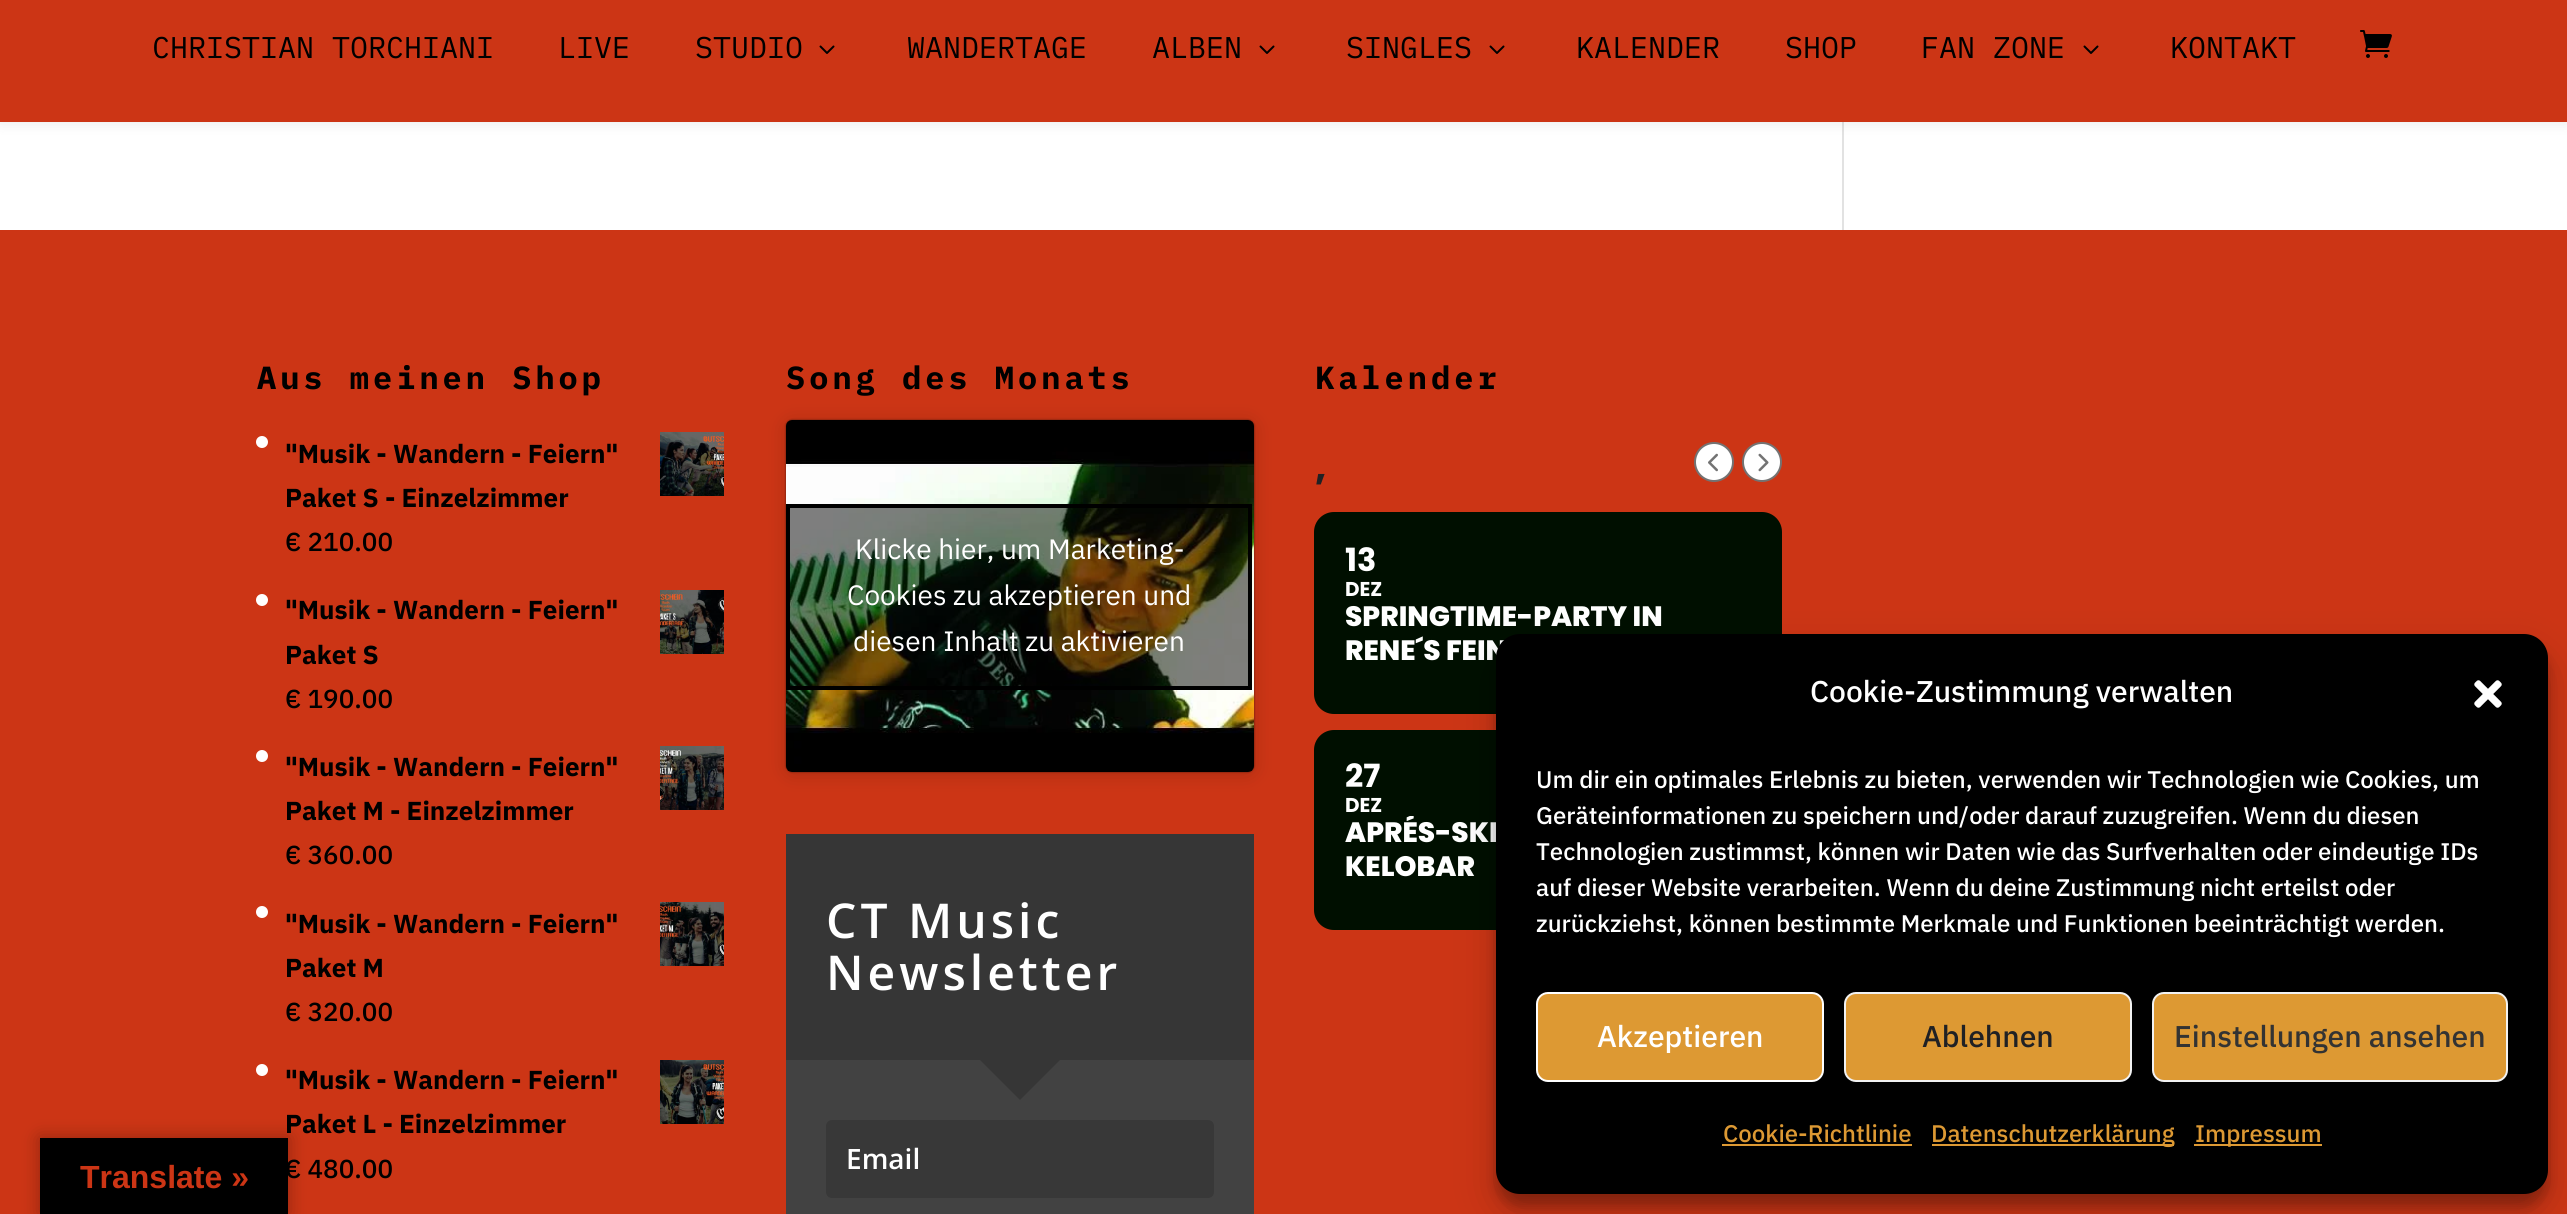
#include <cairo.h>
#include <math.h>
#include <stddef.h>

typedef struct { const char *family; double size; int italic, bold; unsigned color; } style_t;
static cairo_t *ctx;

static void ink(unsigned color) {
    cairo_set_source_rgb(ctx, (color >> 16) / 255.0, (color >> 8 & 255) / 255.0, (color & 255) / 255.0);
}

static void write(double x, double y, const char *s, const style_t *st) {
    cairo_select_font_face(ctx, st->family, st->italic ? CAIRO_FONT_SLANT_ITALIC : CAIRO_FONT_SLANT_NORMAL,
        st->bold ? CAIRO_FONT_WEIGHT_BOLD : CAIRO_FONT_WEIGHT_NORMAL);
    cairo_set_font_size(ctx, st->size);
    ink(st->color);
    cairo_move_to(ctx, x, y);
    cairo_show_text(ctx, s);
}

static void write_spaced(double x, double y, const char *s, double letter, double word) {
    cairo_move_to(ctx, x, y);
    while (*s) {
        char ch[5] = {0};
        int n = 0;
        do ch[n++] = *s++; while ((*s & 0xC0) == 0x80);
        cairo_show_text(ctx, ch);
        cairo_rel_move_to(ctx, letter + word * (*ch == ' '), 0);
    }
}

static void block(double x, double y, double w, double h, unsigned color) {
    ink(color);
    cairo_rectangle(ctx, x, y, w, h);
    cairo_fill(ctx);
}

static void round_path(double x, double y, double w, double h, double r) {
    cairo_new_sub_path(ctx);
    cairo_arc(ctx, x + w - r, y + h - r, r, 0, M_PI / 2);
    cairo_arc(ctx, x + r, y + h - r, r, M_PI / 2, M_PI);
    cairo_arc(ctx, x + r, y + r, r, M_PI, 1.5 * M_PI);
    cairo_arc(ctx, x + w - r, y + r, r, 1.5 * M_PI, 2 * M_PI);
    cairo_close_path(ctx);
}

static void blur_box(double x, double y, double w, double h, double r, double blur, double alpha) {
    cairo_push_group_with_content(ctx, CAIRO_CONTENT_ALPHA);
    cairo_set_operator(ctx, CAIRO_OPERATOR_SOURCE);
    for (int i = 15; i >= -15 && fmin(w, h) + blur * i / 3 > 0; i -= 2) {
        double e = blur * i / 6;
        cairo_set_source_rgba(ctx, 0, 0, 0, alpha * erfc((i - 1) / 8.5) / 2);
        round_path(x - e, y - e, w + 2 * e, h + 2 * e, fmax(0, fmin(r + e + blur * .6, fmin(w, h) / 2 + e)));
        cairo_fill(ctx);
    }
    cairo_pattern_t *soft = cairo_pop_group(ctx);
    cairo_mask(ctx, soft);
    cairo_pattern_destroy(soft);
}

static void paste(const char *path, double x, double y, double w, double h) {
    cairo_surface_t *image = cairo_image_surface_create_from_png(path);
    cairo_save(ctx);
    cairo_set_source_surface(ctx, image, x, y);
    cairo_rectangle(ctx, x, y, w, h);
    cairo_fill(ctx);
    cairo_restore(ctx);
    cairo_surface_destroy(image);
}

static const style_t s1 = {"IBM Plex Mono", 30, 0, 0, 0x000000};
static const style_t s2 = {"IBM Plex Sans", 26, 0, 1, 0x000000};
static const style_t s3 = {"IBM Plex Sans Medium", 26, 0, 0, 0x000000};
static const style_t s4 = {"IBM Plex Sans", 28, 0, 0, 0xffffff};
static const style_t s5 = {"Open Sans SemiBold", 28, 0, 0, 0xffffff};
static const style_t s6 = {"Poppins ExtraBold", 36, 0, 0, 0x202124};
static const style_t s7 = {"Poppins", 32, 0, 1, 0xffffff};
static const style_t s8 = {"Poppins", 20, 0, 1, 0xffffff};
static const style_t s9 = {"Poppins ExtraBold", 28, 0, 0, 0xffffff};
static const style_t s10 = {"IBM Plex Sans Medium", 30, 0, 0, 0xffffff};
static const style_t s11 = {"IBM Plex Sans Medium", 24, 0, 0, 0xffffff};
static const style_t s12 = {"IBM Plex Sans Medium", 30, 0, 0, 0x202124};
static const style_t s13 = {"IBM Plex Sans Medium", 30, 0, 0, 0x333333};
static const style_t s14 = {"IBM Plex Sans Medium", 24, 0, 0, 0xdd9933};
static const style_t s15 = {"Liberation Sans", 32, 0, 1, 0xcc3515};

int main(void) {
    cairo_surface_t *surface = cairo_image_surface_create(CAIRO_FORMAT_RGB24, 2567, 1214);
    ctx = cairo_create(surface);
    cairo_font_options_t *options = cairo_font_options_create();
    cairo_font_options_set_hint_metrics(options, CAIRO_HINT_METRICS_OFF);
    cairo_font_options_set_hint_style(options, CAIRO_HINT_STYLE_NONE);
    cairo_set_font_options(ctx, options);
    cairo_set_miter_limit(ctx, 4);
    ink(0xcc3515);
    cairo_paint(ctx);
    block(0, 122, 2567, 108, 0xffffff);
    block(1842, 122, 2, 108, 0xe2e2e2);
    ink(0x000000);
    blur_box(0, 0, 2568, 122, 0, 7, 0.1);
    block(0, 0, 2567, 122, 0xcc3515);
    write(152, 58, "CHRISTIAN TORCHIANI", &s1);
    write(558, 58, "LIVE", &s1);
    write(695, 58, "STUDIO", &s1);
    paste("pic1.png", 819, 45, 16, 9);
    write(907, 58, "WANDERTAGE", &s1);
    write(1152, 58, "ALBEN", &s1);
    paste("pic1.png", 1259, 45, 16, 9);
    write(1346, 58, "SINGLES", &s1);
    paste("pic1.png", 1489, 45, 16, 9);
    write(1576, 58, "KALENDER", &s1);
    write(1785, 58, "SHOP", &s1);
    write(1921, 58, "FAN ZONE", &s1);
    paste("pic1.png", 2083, 45, 16, 9);
    write(2170, 58, "KONTAKT", &s1);
    paste("pic2.png", 2360, 30, 32, 28);
    cairo_select_font_face(ctx, "IBM Plex Mono", CAIRO_FONT_SLANT_NORMAL, CAIRO_FONT_WEIGHT_BOLD);
    cairo_set_font_size(ctx, 32);
    write_spaced(257, 389, "Aus meinen Shop", 4, 0);
    ink(0xffffff);
    cairo_new_path(ctx);
    cairo_arc(ctx, 262, 442, 6, 0, 2 * M_PI);
    cairo_fill(ctx);
    write(285, 463, "\"Musik - Wandern - Feiern\"", &s2);
    paste("pic3.png", 660, 432, 64, 64);
    write(285, 507, "Paket S - Einzelzimmer", &s2);
    write(285, 551, "€ 210.00", &s3);
    ink(0xffffff);
    cairo_new_path(ctx);
    cairo_arc(ctx, 262, 600, 6, 0, 2 * M_PI);
    cairo_fill(ctx);
    write(285, 619, "\"Musik - Wandern - Feiern\"", &s2);
    paste("pic4.png", 660, 590, 64, 64);
    write(285, 664, "Paket S", &s2);
    write(285, 708, "€ 190.00", &s3);
    ink(0xffffff);
    cairo_new_path(ctx);
    cairo_arc(ctx, 262, 756, 6, 0, 2 * M_PI);
    cairo_fill(ctx);
    write(285, 776, "\"Musik - Wandern - Feiern\"", &s2);
    paste("pic5.png", 660, 746, 64, 64);
    write(285, 820, "Paket M - Einzelzimmer", &s2);
    write(285, 864, "€ 360.00", &s3);
    ink(0xffffff);
    cairo_new_path(ctx);
    cairo_arc(ctx, 262, 912, 6, 0, 2 * M_PI);
    cairo_fill(ctx);
    write(285, 933, "\"Musik - Wandern - Feiern\"", &s2);
    paste("pic6.png", 660, 902, 64, 64);
    write(285, 977, "Paket M", &s2);
    write(285, 1021, "€ 320.00", &s3);
    ink(0xffffff);
    cairo_new_path(ctx);
    cairo_arc(ctx, 262, 1070, 6, 0, 2 * M_PI);
    cairo_fill(ctx);
    write(285, 1089, "\"Musik - Wandern - Feiern\"", &s2);
    paste("pic7.png", 660, 1060, 64, 64);
    write(285, 1133, "Paket L - Einzelzimmer", &s2);
    write(285, 1178, "€ 480.00", &s3);
    cairo_select_font_face(ctx, "IBM Plex Mono", CAIRO_FONT_SLANT_NORMAL, CAIRO_FONT_WEIGHT_BOLD);
    cairo_set_font_size(ctx, 32);
    write_spaced(786, 389, "Song des Monats", 4, 0);
    ink(0x000000);
    blur_box(786, 422, 468, 352, 6, 10, 0.15);
    blur_box(786, 420, 468, 352, 6, 1, 0.5);
    paste("pic8.png", 786, 420, 468, 352);
    cairo_set_source_rgba(ctx, 0, 0, 0, 0.5);
    cairo_rectangle(ctx, 788, 506, 462, 182);
    cairo_fill_preserve(ctx);
    ink(0x000000);
    cairo_set_line_width(ctx, 4);
    cairo_stroke(ctx);
    write(855, 559, "Klicke hier, um Marketing-", &s4);
    write(847, 605, "Cookies zu akzeptieren und", &s4);
    write(853, 651, "diesen Inhalt zu aktivieren", &s4);
    block(786, 834, 468, 226, 0x363636);
    cairo_select_font_face(ctx, "Open Sans SemiBold", CAIRO_FONT_SLANT_NORMAL, CAIRO_FONT_WEIGHT_NORMAL);
    cairo_set_font_size(ctx, 48);
    ink(0xffffff);
    write_spaced(826, 938, "CT Music", 4, 0);
    write_spaced(826, 990, "Newsletter", 4, 0);
    block(786, 1060, 468, 154, 0x424242);
    ink(0x363636);
    cairo_new_path(ctx);
    cairo_move_to(ctx, 980, 1060);
    cairo_line_to(ctx, 1060, 1060);
    cairo_line_to(ctx, 1020, 1100);
    cairo_close_path(ctx);
    cairo_fill(ctx);
    ink(0x383838);
    round_path(826, 1120, 388, 78, 6);
    cairo_fill(ctx);
    write(846, 1169, "Email", &s5);
    cairo_select_font_face(ctx, "IBM Plex Mono", CAIRO_FONT_SLANT_NORMAL, CAIRO_FONT_WEIGHT_BOLD);
    cairo_set_font_size(ctx, 32);
    ink(0x000000);
    write_spaced(1315, 389, "Kalender", 4, 0);
    write(1315, 480, ",", &s6);
    ink(0xffffff);
    cairo_new_path(ctx);
    cairo_arc(ctx, 1714, 462, 19, 0, 2 * M_PI);
    cairo_fill_preserve(ctx);
    ink(0x737373);
    cairo_set_line_width(ctx, 2);
    cairo_stroke(ctx);
    paste("pic9.png", 1708, 453, 10, 19);
    ink(0xffffff);
    cairo_arc(ctx, 1762, 462, 19, 0, 2 * M_PI);
    cairo_fill_preserve(ctx);
    ink(0x737373);
    cairo_stroke(ctx);
    paste("pic10.png", 1758, 453, 11, 19);
    ink(0x000f00);
    round_path(1314, 512, 468, 202, 20);
    cairo_fill(ctx);
    write(1345, 571, "13", &s7);
    write(1345, 596, "DEZ", &s8);
    write(1345, 626, "SPRINGTIME-PARTY IN", &s9);
    write(1345, 660, "RENE´S FEIN", &s9);
    ink(0x000f00);
    round_path(1314, 730, 468, 200, 20);
    cairo_fill(ctx);
    write(1345, 787, "27", &s7);
    write(1345, 812, "DEZ", &s8);
    cairo_save(ctx);
    cairo_rectangle(ctx, 1344, 816, 388, 84);
    cairo_clip(ctx);
    write(1345, 842, "APRÉS-SKI", &s9);
    cairo_restore(ctx);
    write(1345, 876, "KELOBAR", &s9);
    ink(0x000000);
    blur_box(1496, 646, 1052, 560, 24, 6, 0.23);
    blur_box(1496, 654, 1052, 560, 24, 20, 0.19);
    ink(0x000000);
    round_path(1496, 634, 1052, 560, 24);
    cairo_fill(ctx);
    write(1810, 702, "Cookie-Zustimmung verwalten", &s10);
    paste("pic11.png", 2474, 680, 28, 28);
    write(1536, 788, "Um dir ein optimales Erlebnis zu bieten, verwenden wir Technologien wie Cookies, um", &s11);
    write(1536, 824, "Geräteinformationen zu speichern und/oder darauf zuzugreifen. Wenn du diesen", &s11);
    write(1536, 860, "Technologien zustimmst, können wir Daten wie das Surfverhalten oder eindeutige IDs", &s11);
    write(1536, 896, "auf dieser Website verarbeiten. Wenn du deine Zustimmung nicht erteilst oder", &s11);
    write(1536, 932, "zurückziehst, können bestimmte Merkmale und Funktionen beeinträchtigt werden.", &s11);
    ink(0xdd9933);
    round_path(1537, 993, 286, 88, 11);
    cairo_fill_preserve(ctx);
    ink(0xffffff);
    cairo_stroke(ctx);
    write(1597, 1047, "Akzeptieren", &s10);
    ink(0xdd9933);
    round_path(1845, 993, 286, 88, 11);
    cairo_fill_preserve(ctx);
    ink(0xf2f2f2);
    cairo_stroke(ctx);
    write(1922, 1047, "Ablehnen", &s12);
    ink(0xdd9933);
    round_path(2153, 993, 354, 88, 11);
    cairo_fill_preserve(ctx);
    ink(0xf2f2f2);
    cairo_stroke(ctx);
    write(2174, 1047, "Einstellungen ansehen", &s13);
    write(1723, 1142, "Cookie-Richtlinie", &s14);
    block(1722, 1144, 190, 2, 0xdd9933);
    block(1932, 1144, 242, 2, 0xdd9933);
    write(1931, 1142, "Datenschutzerklärung", &s14);
    block(2194, 1144, 128, 2, 0xdd9933);
    write(2195, 1142, "Impressum", &s14);
    ink(0x000000);
    blur_box(40, 1138, 248, 76, 0, 9, 0.3);
    block(40, 1138, 248, 76, 0x000000);
    write(80, 1188, "Translate »", &s15);
    cairo_surface_write_to_png(surface, "screenshot.png");
    cairo_font_options_destroy(options);
    cairo_destroy(ctx);
    cairo_surface_destroy(surface);
    return 0;
}
